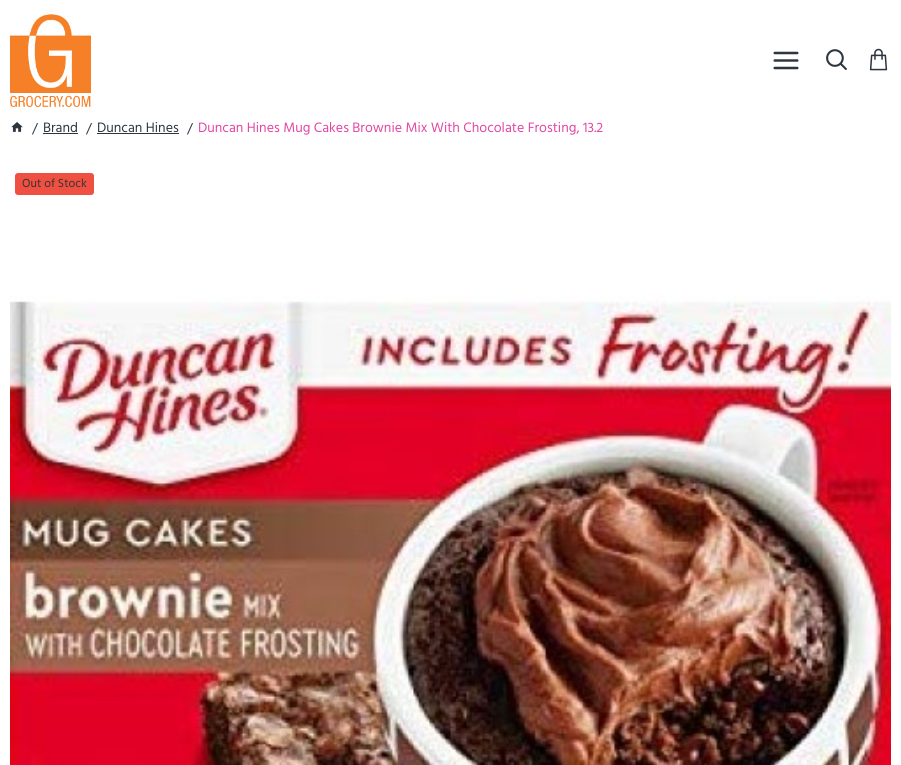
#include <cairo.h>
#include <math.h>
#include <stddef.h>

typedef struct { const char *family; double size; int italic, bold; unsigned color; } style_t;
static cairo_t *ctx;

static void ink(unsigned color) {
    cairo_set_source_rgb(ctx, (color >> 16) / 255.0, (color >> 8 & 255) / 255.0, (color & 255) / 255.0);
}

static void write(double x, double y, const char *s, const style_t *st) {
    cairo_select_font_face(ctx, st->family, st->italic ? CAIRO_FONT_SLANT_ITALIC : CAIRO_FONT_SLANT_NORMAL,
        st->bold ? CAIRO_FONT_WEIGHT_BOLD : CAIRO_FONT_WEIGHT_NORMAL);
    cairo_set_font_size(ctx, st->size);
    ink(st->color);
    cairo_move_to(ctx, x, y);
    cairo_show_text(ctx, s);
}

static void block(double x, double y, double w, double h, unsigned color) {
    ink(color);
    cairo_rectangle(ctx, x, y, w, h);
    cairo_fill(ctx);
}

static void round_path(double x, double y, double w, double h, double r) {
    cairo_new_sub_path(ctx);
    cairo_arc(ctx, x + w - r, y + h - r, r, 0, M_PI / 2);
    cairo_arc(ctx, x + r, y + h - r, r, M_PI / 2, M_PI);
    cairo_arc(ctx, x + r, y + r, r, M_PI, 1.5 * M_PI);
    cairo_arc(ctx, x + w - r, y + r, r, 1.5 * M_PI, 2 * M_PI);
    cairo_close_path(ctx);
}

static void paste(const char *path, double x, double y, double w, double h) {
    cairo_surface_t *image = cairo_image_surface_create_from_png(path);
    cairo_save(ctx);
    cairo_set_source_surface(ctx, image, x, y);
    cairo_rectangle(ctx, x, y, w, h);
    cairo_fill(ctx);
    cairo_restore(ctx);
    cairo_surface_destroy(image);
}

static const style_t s1 = {"Hind", 14, 0, 0, 0x2c3640};
static const style_t s2 = {"Hind", 14, 0, 0, 0xe345a3};
static const style_t s3 = {"Hind", 12, 0, 0, 0x333333};

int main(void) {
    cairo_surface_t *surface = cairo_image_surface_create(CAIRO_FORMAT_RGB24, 901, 765);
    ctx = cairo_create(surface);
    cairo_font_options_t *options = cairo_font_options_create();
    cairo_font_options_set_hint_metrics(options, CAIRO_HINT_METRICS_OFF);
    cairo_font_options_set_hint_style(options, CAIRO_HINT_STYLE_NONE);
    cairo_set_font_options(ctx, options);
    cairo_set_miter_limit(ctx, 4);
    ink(0xffffff);
    cairo_paint(ctx);
    paste("pic1.png", 10, 10, 81, 97);
    paste("pic2.png", 773, 51, 26, 19);
    paste("pic3.png", 826, 49, 21, 21);
    paste("pic4.png", 869, 48, 19, 23);
    paste("pic5.png", 11, 122, 12, 10);
    write(32, 133, "/", &s1);
    write(43, 132, "Brand", &s1);
    block(43, 133, 35, 1, 0x2c3640);
    write(86, 133, "/", &s1);
    write(97, 132, "Duncan Hines", &s1);
    block(97, 133, 82, 1, 0x2c3640);
    write(187, 133, "/", &s1);
    write(198, 132, "Duncan Hines Mug Cakes Brownie Mix With Chocolate Frosting, 13.2", &s2);
    ink(0xef5042);
    round_path(15, 173, 79, 22, 3);
    cairo_fill(ctx);
    write(22, 187, "Out of Stock", &s3);
    paste("pic6.png", 10, 295, 881, 470);
    cairo_surface_write_to_png(surface, "screenshot.png");
    cairo_font_options_destroy(options);
    cairo_destroy(ctx);
    cairo_surface_destroy(surface);
    return 0;
}
